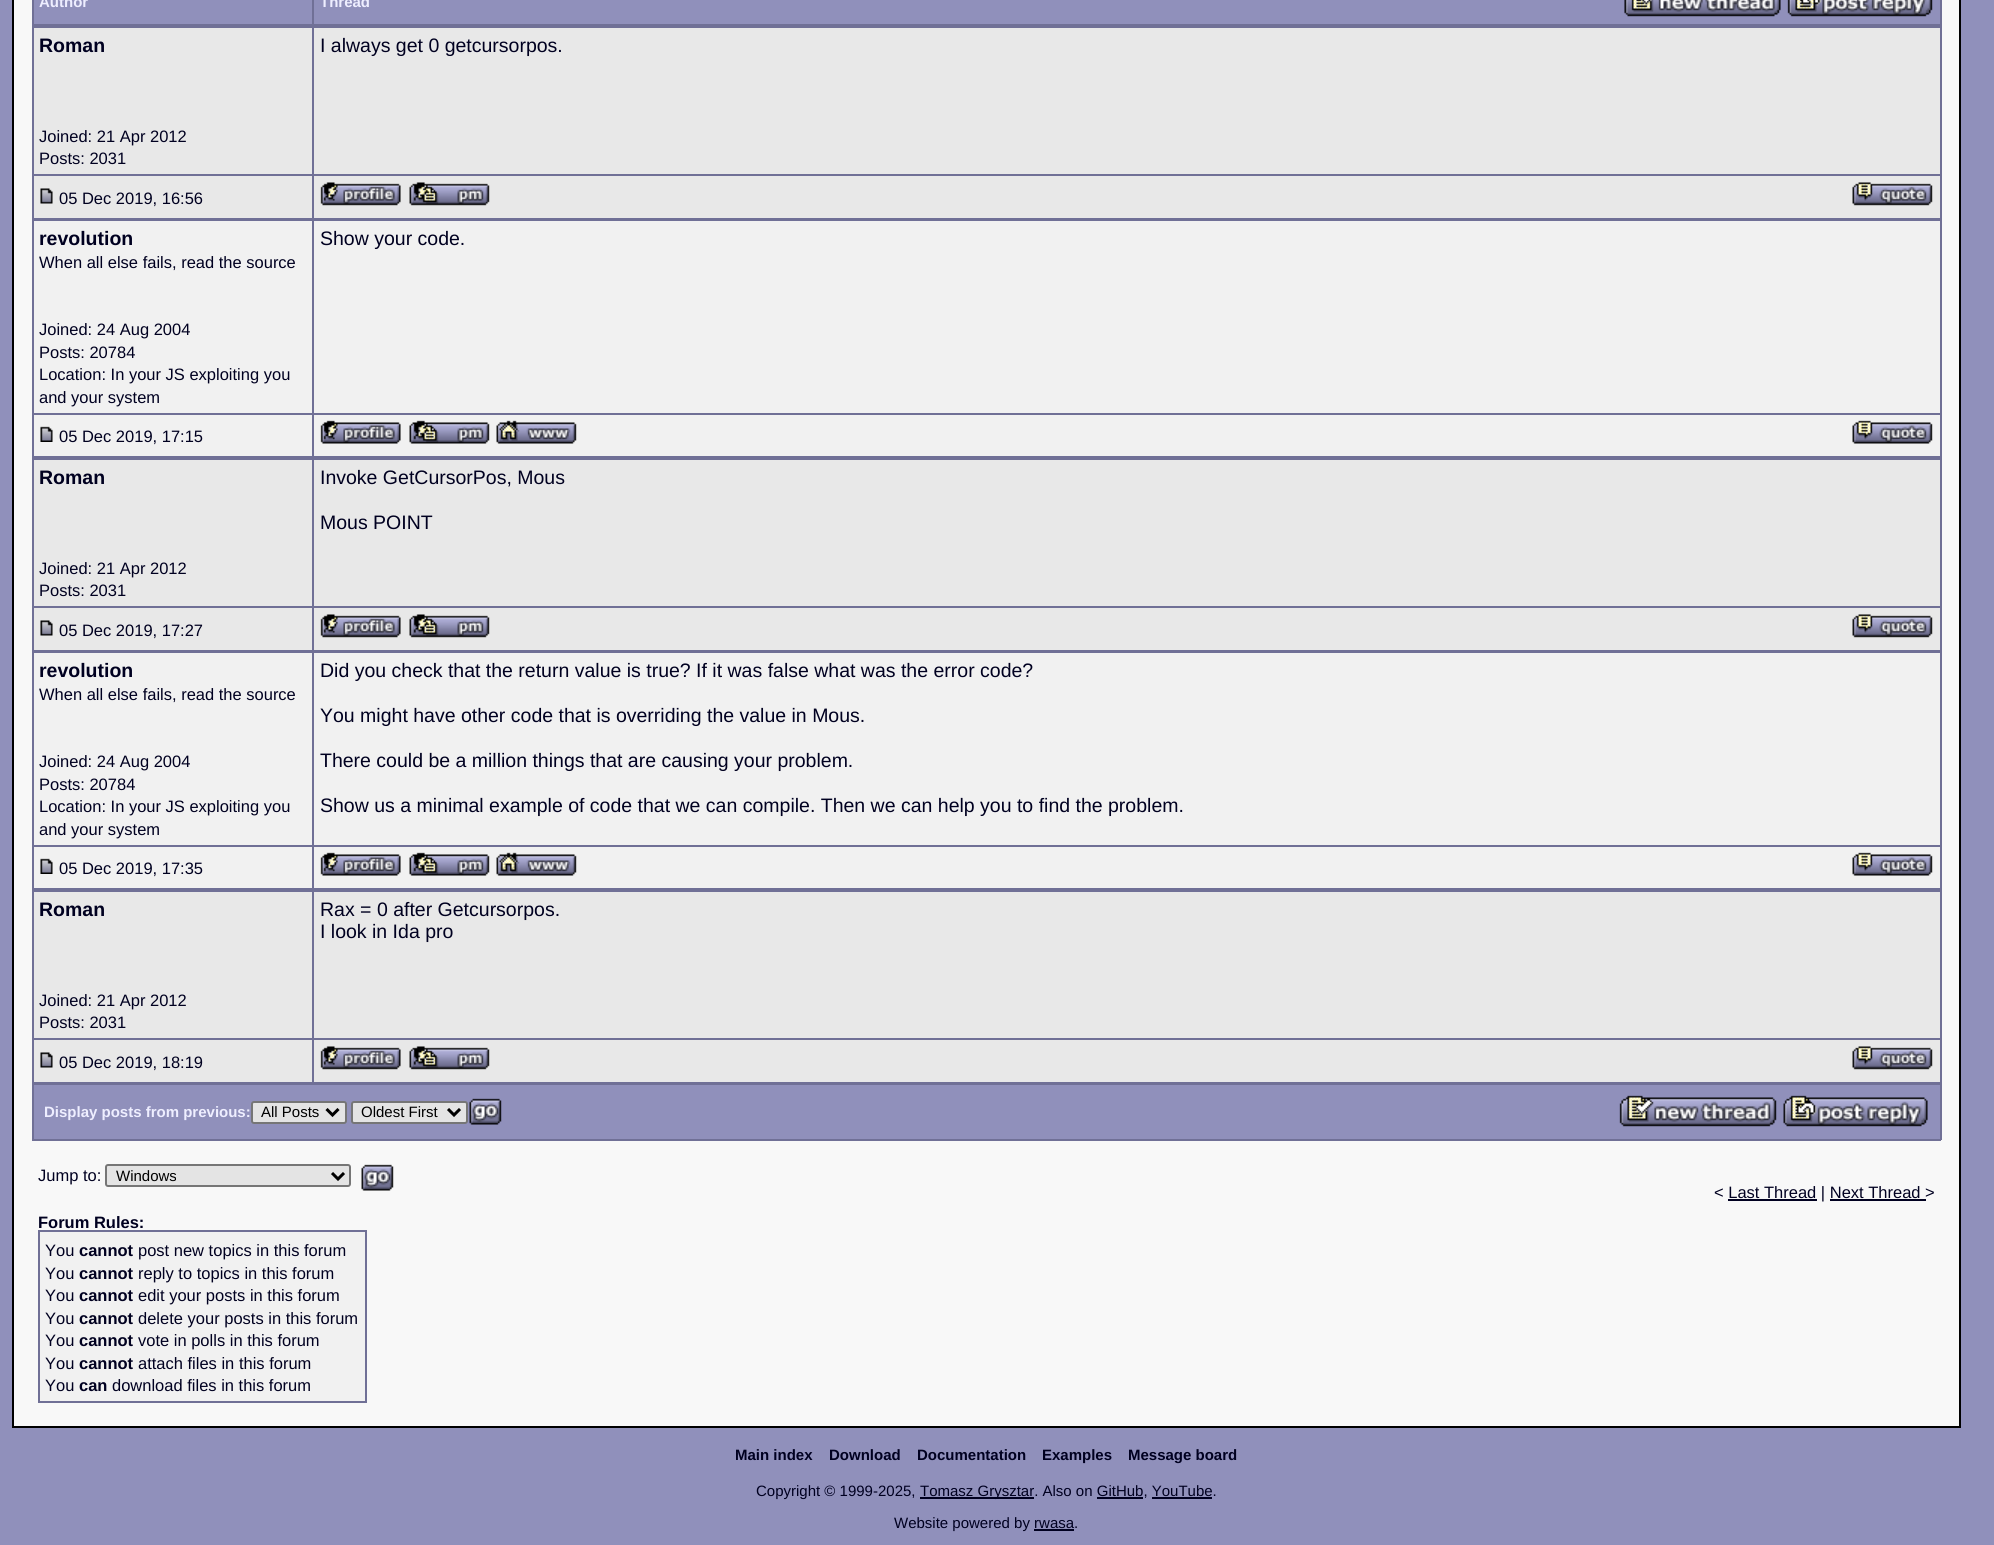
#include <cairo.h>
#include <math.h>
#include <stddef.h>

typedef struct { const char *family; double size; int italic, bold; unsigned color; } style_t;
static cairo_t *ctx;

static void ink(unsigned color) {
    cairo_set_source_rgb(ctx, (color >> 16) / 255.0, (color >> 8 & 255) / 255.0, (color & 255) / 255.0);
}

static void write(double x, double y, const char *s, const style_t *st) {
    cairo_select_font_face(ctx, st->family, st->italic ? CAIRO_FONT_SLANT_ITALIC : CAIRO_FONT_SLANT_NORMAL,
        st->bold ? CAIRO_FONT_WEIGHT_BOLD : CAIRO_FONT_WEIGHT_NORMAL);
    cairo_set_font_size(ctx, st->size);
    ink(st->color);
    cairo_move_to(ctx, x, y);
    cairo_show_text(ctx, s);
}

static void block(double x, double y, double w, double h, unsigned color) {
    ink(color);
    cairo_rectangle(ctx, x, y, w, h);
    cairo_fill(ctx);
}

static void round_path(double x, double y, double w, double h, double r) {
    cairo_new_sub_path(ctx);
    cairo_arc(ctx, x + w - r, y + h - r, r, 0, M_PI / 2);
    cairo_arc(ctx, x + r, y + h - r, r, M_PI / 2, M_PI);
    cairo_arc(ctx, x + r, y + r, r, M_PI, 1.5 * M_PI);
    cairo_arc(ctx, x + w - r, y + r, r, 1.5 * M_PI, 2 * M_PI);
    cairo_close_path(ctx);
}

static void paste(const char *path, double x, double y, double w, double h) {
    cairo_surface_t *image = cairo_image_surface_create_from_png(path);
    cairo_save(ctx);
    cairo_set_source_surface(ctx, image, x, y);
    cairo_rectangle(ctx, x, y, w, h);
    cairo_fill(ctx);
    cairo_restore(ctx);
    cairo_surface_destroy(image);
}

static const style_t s1 = {"Liberation Sans", 15, 0, 1, 0xeeeeff};
static const style_t s2 = {"Liberation Sans", 19.5, 0, 1, 0x000020};
static const style_t s3 = {"Liberation Sans", 16.5, 0, 0, 0x000020};
static const style_t s4 = {"Liberation Sans", 19.5, 0, 0, 0x000020};
static const style_t s5 = {"Liberation Sans", 15, 0, 0, 0x000000};
static const style_t s6 = {"Liberation Sans", 16.5, 0, 1, 0x000020};
static const style_t s7 = {"Liberation Sans", 15, 0, 1, 0x000020};
static const style_t s8 = {"Liberation Sans", 15, 0, 0, 0x000020};

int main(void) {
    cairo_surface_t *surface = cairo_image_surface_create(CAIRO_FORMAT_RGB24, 1994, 1545);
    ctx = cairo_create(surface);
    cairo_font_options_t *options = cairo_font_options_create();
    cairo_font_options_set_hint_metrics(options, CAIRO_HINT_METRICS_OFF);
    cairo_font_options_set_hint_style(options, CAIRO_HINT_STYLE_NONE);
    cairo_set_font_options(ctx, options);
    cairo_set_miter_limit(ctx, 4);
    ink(0x9090bb);
    cairo_paint(ctx);
    ink(0xf8f8f8);
    cairo_rectangle(ctx, 13, -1, 1947, 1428);
    cairo_fill_preserve(ctx);
    ink(0x000000);
    cairo_stroke(ctx);
    block(1940, 0, 2, 26, 0x707096);
    block(32, 24, 1909, 4, 0x707096);
    block(32, 0, 2, 26, 0x707096);
    block(34, 0, 278, 24, 0x9090bb);
    write(39, 7, "Author", &s1);
    block(314, 0, 1626, 24, 0x9090bb);
    block(312, 0, 2, 26, 0x707096);
    write(320, 7, "Thread", &s1);
    paste("pic1.png", 1624, 0, 157, 17);
    paste("pic2.png", 1787, 0, 146, 17);
    block(1940, 26, 2, 193, 0x707096);
    block(32, 218, 1909, 3, 0x707096);
    block(32, 26, 2, 193, 0x707096);
    block(34, 28, 278, 146, 0xe8e8e8);
    write(39, 52, "Roman", &s2);
    write(39, 142, "Joined: 21 Apr 2012", &s3);
    write(39, 164, "Posts: 2031", &s3);
    block(314, 28, 1626, 146, 0xe8e8e8);
    write(320, 52, "I always get 0 getcursorpos.", &s4);
    block(32, 174, 1909, 2, 0x707096);
    block(34, 176, 278, 42, 0xe8e8e8);
    paste("pic3.png", 40, 188, 13, 16);
    write(59, 204, "05 Dec 2019, 16:56", &s3);
    block(314, 176, 1626, 42, 0xe8e8e8);
    block(312, 26, 2, 193, 0x707096);
    paste("pic4.png", 320, 182, 81, 24);
    paste("pic5.png", 409, 182, 81, 24);
    paste("pic6.png", 1852, 182, 81, 24);
    block(1940, 219, 2, 239, 0x707096);
    block(32, 456, 1909, 4, 0x707096);
    block(32, 219, 2, 239, 0x707096);
    block(34, 221, 278, 192, 0xf1f1f1);
    write(39, 245, "revolution", &s2);
    write(39, 268, "When all else fails, read the source", &s3);
    write(39, 335, "Joined: 24 Aug 2004", &s3);
    write(39, 358, "Posts: 20784", &s3);
    write(39, 380, "Location: In your JS exploiting you", &s3);
    write(39, 403, "and your system", &s3);
    block(314, 221, 1626, 192, 0xf1f1f1);
    write(320, 245, "Show your code.", &s4);
    block(32, 413, 1909, 2, 0x707096);
    block(34, 415, 278, 41, 0xf1f1f1);
    paste("pic7.png", 40, 426, 13, 16);
    write(59, 442, "05 Dec 2019, 17:15", &s3);
    block(314, 415, 1626, 41, 0xf1f1f1);
    block(312, 219, 2, 239, 0x707096);
    paste("pic8.png", 320, 420, 81, 24);
    paste("pic9.png", 409, 420, 81, 24);
    paste("pic10.png", 496, 420, 81, 24);
    paste("pic11.png", 1852, 420, 81, 24);
    block(1940, 458, 2, 193, 0x707096);
    block(32, 650, 1909, 3, 0x707096);
    block(32, 458, 2, 193, 0x707096);
    block(34, 460, 278, 146, 0xe8e8e8);
    write(39, 484, "Roman", &s2);
    write(39, 574, "Joined: 21 Apr 2012", &s3);
    write(39, 596, "Posts: 2031", &s3);
    block(314, 460, 1626, 146, 0xe8e8e8);
    write(320, 484, "Invoke GetCursorPos, Mous", &s4);
    write(320, 529, "Mous POINT", &s4);
    block(32, 606, 1909, 2, 0x707096);
    block(34, 608, 278, 42, 0xe8e8e8);
    paste("pic3.png", 40, 620, 13, 16);
    write(59, 636, "05 Dec 2019, 17:27", &s3);
    block(314, 608, 1626, 42, 0xe8e8e8);
    block(312, 458, 2, 193, 0x707096);
    paste("pic4.png", 320, 614, 81, 24);
    paste("pic5.png", 409, 614, 81, 24);
    paste("pic6.png", 1852, 614, 81, 24);
    block(1940, 651, 2, 239, 0x707096);
    block(32, 888, 1909, 4, 0x707096);
    block(32, 651, 2, 239, 0x707096);
    block(34, 653, 278, 192, 0xf1f1f1);
    write(39, 677, "revolution", &s2);
    write(39, 700, "When all else fails, read the source", &s3);
    write(39, 767, "Joined: 24 Aug 2004", &s3);
    write(39, 790, "Posts: 20784", &s3);
    write(39, 812, "Location: In your JS exploiting you", &s3);
    write(39, 835, "and your system", &s3);
    block(314, 653, 1626, 192, 0xf1f1f1);
    write(320, 677, "Did you check that the return value is true? If it was false what was the error code?", &s4);
    write(320, 722, "You might have other code that is overriding the value in Mous.", &s4);
    write(320, 767, "There could be a million things that are causing your problem.", &s4);
    write(320, 812, "Show us a minimal example of code that we can compile. Then we can help you to find the problem.", &s4);
    block(32, 845, 1909, 2, 0x707096);
    block(34, 847, 278, 41, 0xf1f1f1);
    paste("pic7.png", 40, 858, 13, 16);
    write(59, 874, "05 Dec 2019, 17:35", &s3);
    block(314, 847, 1626, 41, 0xf1f1f1);
    block(312, 651, 2, 239, 0x707096);
    paste("pic8.png", 320, 852, 81, 24);
    paste("pic9.png", 409, 852, 81, 24);
    paste("pic10.png", 496, 852, 81, 24);
    paste("pic11.png", 1852, 852, 81, 24);
    block(1940, 890, 2, 193, 0x707096);
    block(32, 1082, 1909, 3, 0x707096);
    block(32, 890, 2, 193, 0x707096);
    block(34, 892, 278, 146, 0xe8e8e8);
    write(39, 916, "Roman", &s2);
    write(39, 1006, "Joined: 21 Apr 2012", &s3);
    write(39, 1028, "Posts: 2031", &s3);
    block(314, 892, 1626, 146, 0xe8e8e8);
    write(320, 916, "Rax = 0 after Getcursorpos.", &s4);
    write(320, 938, "I look in Ida pro", &s4);
    block(32, 1038, 1909, 2, 0x707096);
    block(34, 1040, 278, 42, 0xe8e8e8);
    paste("pic3.png", 40, 1052, 13, 16);
    write(59, 1068, "05 Dec 2019, 18:19", &s3);
    block(314, 1040, 1626, 42, 0xe8e8e8);
    block(312, 890, 2, 193, 0x707096);
    paste("pic4.png", 320, 1046, 81, 24);
    paste("pic5.png", 409, 1046, 81, 24);
    paste("pic6.png", 1852, 1046, 81, 24);
    block(1940, 1083, 2, 57, 0x707096);
    block(32, 1139, 1909, 2, 0x707096);
    block(32, 1083, 2, 57, 0x707096);
    block(34, 1085, 1906, 54, 0x9090bb);
    write(44, 1117, "Display posts from previous:", &s1);
    ink(0xe4e4e4);
    round_path(252, 1102, 94, 21, 2);
    cairo_fill_preserve(ctx);
    ink(0x767676);
    cairo_stroke(ctx);
    cairo_new_path(ctx);
    cairo_move_to(ctx, 326.5, 1109);
    cairo_line_to(ctx, 332.5, 1115);
    cairo_line_to(ctx, 338.5, 1109);
    ink(0x000000);
    cairo_set_line_width(ctx, 3);
    cairo_stroke(ctx);
    write(261, 1117, "All Posts", &s5);
    ink(0xe4e4e4);
    round_path(352, 1102, 115, 21, 2);
    cairo_fill_preserve(ctx);
    ink(0x767676);
    cairo_set_line_width(ctx, 2);
    cairo_stroke(ctx);
    cairo_new_path(ctx);
    cairo_move_to(ctx, 448, 1109);
    cairo_line_to(ctx, 454, 1115);
    cairo_line_to(ctx, 460, 1109);
    ink(0x000000);
    cairo_set_line_width(ctx, 3);
    cairo_stroke(ctx);
    write(361, 1117, "Oldest First", &s5);
    paste("pic12.png", 469, 1098, 33, 27);
    paste("pic13.png", 1619, 1095, 158, 32);
    paste("pic14.png", 1783, 1095, 145, 32);
    write(38, 1181, "Jump to:", &s3);
    ink(0xe4e4e4);
    round_path(106, 1165, 244, 21, 2);
    cairo_fill_preserve(ctx);
    ink(0x767676);
    cairo_set_line_width(ctx, 2);
    cairo_stroke(ctx);
    cairo_new_path(ctx);
    cairo_move_to(ctx, 332, 1173);
    cairo_line_to(ctx, 338, 1179);
    cairo_line_to(ctx, 344, 1173);
    ink(0x000000);
    cairo_set_line_width(ctx, 3);
    cairo_stroke(ctx);
    write(116, 1181, "Windows", &s5);
    paste("pic15.png", 361, 1164, 33, 27);
    write(1714, 1198, "< Last Thread | Next Thread >", &s3);
    block(1728, 1199, 89, 2, 0x000020);
    block(1830, 1199, 96, 2, 0x000020);
    write(38, 1228, "Forum Rules:", &s6);
    block(38, 1230, 328, 2, 0x707096);
    block(365, 1230, 2, 173, 0x707096);
    block(38, 1401, 328, 2, 0x707096);
    block(38, 1230, 2, 173, 0x707096);
    block(40, 1232, 325, 169, 0xf1f1f1);
    write(45, 1256, "You", &s3);
    write(79, 1256, "cannot", &s6);
    write(138, 1256, "post new topics in this forum", &s3);
    write(45, 1279, "You", &s3);
    write(79, 1279, "cannot", &s6);
    write(138, 1279, "reply to topics in this forum", &s3);
    write(45, 1301, "You", &s3);
    write(79, 1301, "cannot", &s6);
    write(138, 1301, "edit your posts in this forum", &s3);
    write(45, 1324, "You", &s3);
    write(79, 1324, "cannot", &s6);
    write(138, 1324, "delete your posts in this forum", &s3);
    write(45, 1346, "You", &s3);
    write(79, 1346, "cannot", &s6);
    write(138, 1346, "vote in polls in this forum", &s3);
    write(45, 1369, "You", &s3);
    write(79, 1369, "cannot", &s6);
    write(138, 1369, "attach files in this forum", &s3);
    write(45, 1391, "You", &s3);
    write(79, 1391, "can", &s6);
    write(112, 1391, "download files in this forum", &s3);
    write(735, 1460, "Main index", &s7);
    write(829, 1460, "Download", &s7);
    write(917, 1460, "Documentation", &s7);
    write(1042, 1460, "Examples", &s7);
    write(1128, 1460, "Message board", &s7);
    write(756, 1496, "Copyright © 1999-2025,", &s8);
    block(920, 1497, 114, 2, 0x000020);
    write(920, 1496, "Tomasz Grysztar. Also on GitHub, YouTube.", &s8);
    block(1097, 1497, 46, 2, 0x000020);
    block(1152, 1497, 60, 2, 0x000020);
    write(894, 1528, "Website powered by rwasa.", &s8);
    block(1034, 1529, 40, 2, 0x000020);
    cairo_surface_write_to_png(surface, "screenshot.png");
    cairo_font_options_destroy(options);
    cairo_destroy(ctx);
    cairo_surface_destroy(surface);
    return 0;
}
